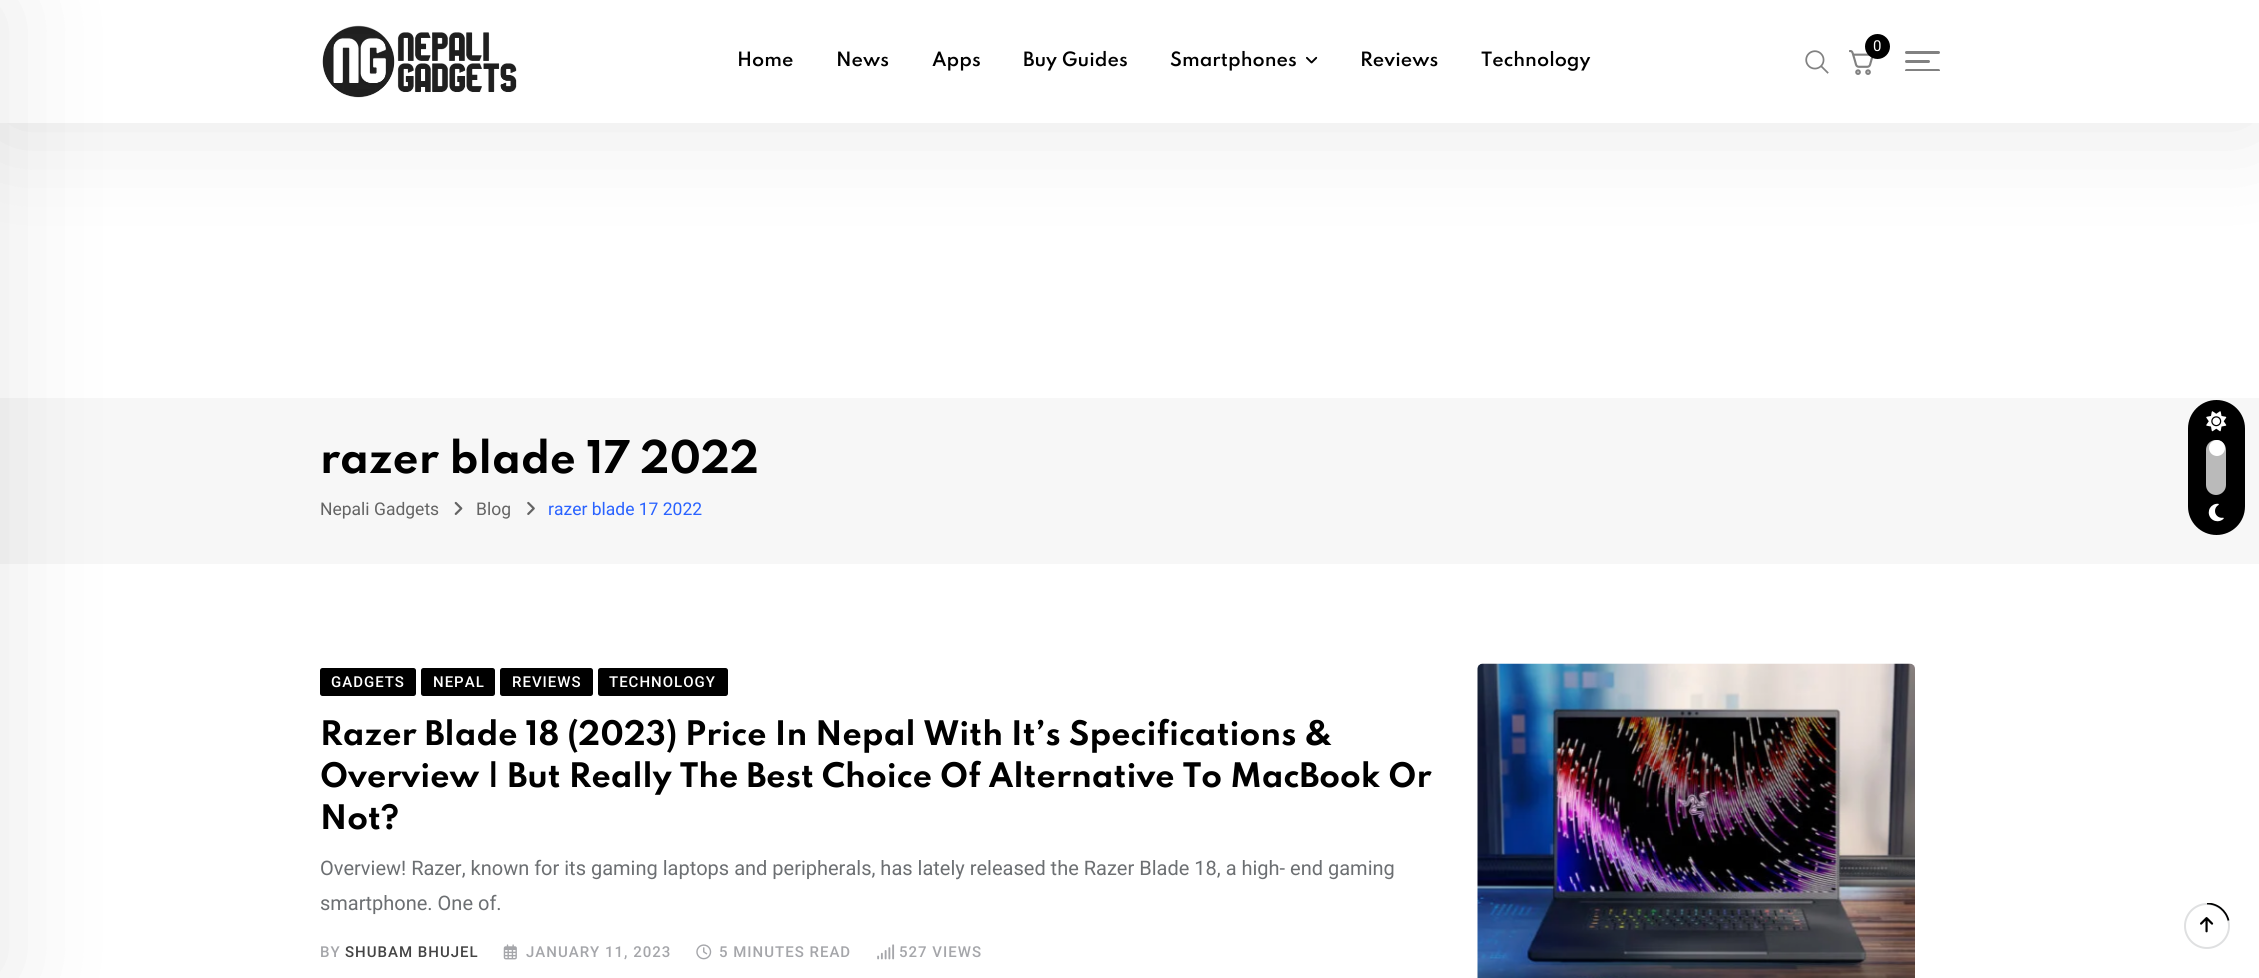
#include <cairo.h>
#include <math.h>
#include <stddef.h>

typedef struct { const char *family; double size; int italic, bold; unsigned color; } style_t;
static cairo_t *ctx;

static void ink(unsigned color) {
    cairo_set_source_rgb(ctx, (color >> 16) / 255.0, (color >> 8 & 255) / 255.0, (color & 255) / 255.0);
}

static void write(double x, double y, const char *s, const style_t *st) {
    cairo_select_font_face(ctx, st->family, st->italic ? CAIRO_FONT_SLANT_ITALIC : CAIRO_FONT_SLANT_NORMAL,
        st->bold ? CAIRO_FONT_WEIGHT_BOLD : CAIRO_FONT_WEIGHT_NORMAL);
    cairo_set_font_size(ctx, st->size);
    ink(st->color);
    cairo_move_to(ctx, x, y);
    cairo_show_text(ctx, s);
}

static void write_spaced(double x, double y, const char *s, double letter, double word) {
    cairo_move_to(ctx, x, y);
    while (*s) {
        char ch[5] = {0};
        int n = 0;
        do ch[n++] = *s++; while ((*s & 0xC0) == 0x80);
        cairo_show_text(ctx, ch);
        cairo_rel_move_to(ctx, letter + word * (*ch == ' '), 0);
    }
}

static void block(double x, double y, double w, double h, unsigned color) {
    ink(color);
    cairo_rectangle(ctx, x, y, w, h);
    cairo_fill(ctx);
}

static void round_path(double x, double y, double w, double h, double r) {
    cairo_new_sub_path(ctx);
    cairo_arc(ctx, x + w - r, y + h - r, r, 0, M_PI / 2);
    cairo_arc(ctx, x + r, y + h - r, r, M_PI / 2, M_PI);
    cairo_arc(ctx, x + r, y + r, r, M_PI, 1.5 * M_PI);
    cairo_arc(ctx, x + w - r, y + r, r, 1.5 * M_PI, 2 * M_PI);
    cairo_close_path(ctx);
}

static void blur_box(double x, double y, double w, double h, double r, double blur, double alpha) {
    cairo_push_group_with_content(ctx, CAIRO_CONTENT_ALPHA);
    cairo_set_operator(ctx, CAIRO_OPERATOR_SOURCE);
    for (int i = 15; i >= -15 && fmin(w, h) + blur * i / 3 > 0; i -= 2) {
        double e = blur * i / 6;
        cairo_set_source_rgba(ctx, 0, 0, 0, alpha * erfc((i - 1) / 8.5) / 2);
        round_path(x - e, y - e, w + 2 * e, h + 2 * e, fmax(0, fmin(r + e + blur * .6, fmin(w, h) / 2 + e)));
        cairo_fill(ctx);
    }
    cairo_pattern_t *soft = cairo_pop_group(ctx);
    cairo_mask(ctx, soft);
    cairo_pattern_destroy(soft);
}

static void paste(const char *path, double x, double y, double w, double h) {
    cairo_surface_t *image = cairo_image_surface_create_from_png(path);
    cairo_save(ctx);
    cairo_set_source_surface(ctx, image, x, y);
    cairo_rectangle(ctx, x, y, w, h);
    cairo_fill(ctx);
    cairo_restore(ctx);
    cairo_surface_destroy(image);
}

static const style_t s1 = {"Roboto", 15, 0, 0, 0xffffff};
static const style_t s2 = {"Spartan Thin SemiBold", 17.5, 0, 0, 0x000000};
static const style_t s3 = {"Spartan Thin", 40, 0, 1, 0x000000};
static const style_t s4 = {"Roboto", 17.5, 0, 0, 0x646464};
static const style_t s5 = {"Roboto", 17.5, 0, 0, 0x2962ff};
static const style_t s6 = {"Spartan Thin", 30, 0, 1, 0x000000};
static const style_t s7 = {"Roboto", 20, 0, 0, 0x6c6f72};

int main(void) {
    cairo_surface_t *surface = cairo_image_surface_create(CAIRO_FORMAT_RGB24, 2259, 978);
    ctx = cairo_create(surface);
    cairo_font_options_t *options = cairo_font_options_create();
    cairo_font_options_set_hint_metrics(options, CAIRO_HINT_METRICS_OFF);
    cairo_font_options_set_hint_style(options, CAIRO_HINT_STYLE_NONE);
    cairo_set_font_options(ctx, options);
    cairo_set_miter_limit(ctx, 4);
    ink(0xffffff);
    cairo_paint(ctx);
    ink(0x000000);
    blur_box(0, 0, 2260, 123, 0, 56, 0.1);
    block(0, 0, 2259, 123, 0xffffff);
    paste("pic1.png", 322, 25, 195, 73);
    block(0, 398, 2259, 166, 0xf7f7f7);
    ink(0x000000);
    blur_box(-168, 0, 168, 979, 0, 56, 0.1);
    ink(0x818181);
    round_path(1905, 51, 35, 3, 1.5);
    cairo_fill(ctx);
    round_path(1905, 60, 25, 3, 1.5);
    cairo_fill(ctx);
    cairo_save(ctx);
    cairo_rectangle(ctx, 1905, 51, 35, 20);
    cairo_clip(ctx);
    round_path(1905, 69, 35, 3, 1.5);
    cairo_fill(ctx);
    cairo_restore(ctx);
    paste("pic2.png", 1849, 50, 24, 25);
    ink(0x000000);
    cairo_arc(ctx, 1877.5, 46.5, 12.5, 0, 2 * M_PI);
    cairo_fill(ctx);
    write(1873, 51, "0", &s1);
    paste("pic3.png", 1805, 50, 24, 24);
    write(737, 66, "Home", &s2);
    write(836, 66, "News", &s2);
    write(932, 66, "Apps", &s2);
    write(1023, 66, "Buy Guides", &s2);
    write(1170, 66, "Smartphones", &s2);
    paste("pic4.png", 1306, 56, 12, 8);
    write(1360, 66, "Reviews", &s2);
    write(1481, 66, "Technology", &s2);
    write(320, 473, "razer blade 17 2022", &s3);
    write(320, 515, "Nepali Gadgets", &s4);
    paste("pic5.png", 454, 501, 9, 14);
    write(476, 515, "Blog", &s4);
    paste("pic6.png", 527, 501, 8, 14);
    write(548, 515, "razer blade 17 2022", &s5);
    ink(0x000000);
    round_path(320, 668, 96, 28, 2.5);
    cairo_fill(ctx);
    cairo_select_font_face(ctx, "Roboto Medium", CAIRO_FONT_SLANT_NORMAL, CAIRO_FONT_WEIGHT_NORMAL);
    cairo_set_font_size(ctx, 15);
    ink(0xffffff);
    write_spaced(331, 687, "GADGETS", 1, 0);
    ink(0x000000);
    round_path(421, 668, 74, 28, 2.5);
    cairo_fill(ctx);
    ink(0xffffff);
    write_spaced(433, 687, "NEPAL", 1, 0);
    ink(0x000000);
    round_path(500, 668, 93, 28, 2.5);
    cairo_fill(ctx);
    ink(0xffffff);
    write_spaced(512, 687, "REVIEWS", 1, 0);
    ink(0x000000);
    round_path(598, 668, 130, 28, 2.5);
    cairo_fill(ctx);
    ink(0xffffff);
    write_spaced(609, 687, "TECHNOLOGY", 1, 0);
    write(320, 745, "Razer Blade 18 (2023) Price In Nepal With It’s Specifications &", &s6);
    write(320, 787, "Overview | But Really The Best Choice Of Alternative To MacBook Or", &s6);
    write(320, 829, "Not?", &s6);
    write(320, 875, "Overview! Razer, known for its gaming laptops and peripherals, has lately released the Razer Blade 18, a high- end gaming", &s7);
    write(320, 910, "smartphone. One of.", &s7);
    cairo_select_font_face(ctx, "Roboto Medium", CAIRO_FONT_SLANT_NORMAL, CAIRO_FONT_WEIGHT_NORMAL);
    cairo_set_font_size(ctx, 15);
    ink(0xa5a6aa);
    write_spaced(320, 957, "BY", 1, 0);
    ink(0x444444);
    write_spaced(345, 957, "SHUBAM BHUJEL", 1, 0);
    paste("pic7.png", 503, 944, 14, 16);
    ink(0xa5a6aa);
    write_spaced(526, 957, "JANUARY 11, 2023", 1, 0);
    paste("pic8.png", 696, 944, 16, 16);
    write_spaced(719, 957, "5 MINUTES READ", 1, 0);
    paste("pic9.png", 877, 944, 18, 16);
    write_spaced(899, 957, "527 VIEWS", 1, 0);
    paste("pic10.png", 1477, 663, 438, 315);
    cairo_arc(ctx, 2207, 926, 22, 0, 2 * M_PI);
    ink(0xdfe0e1);
    cairo_stroke(ctx);
    cairo_save(ctx);
    cairo_rectangle(ctx, 2184, 903, 46, 46);
    cairo_clip(ctx);
    cairo_new_path(ctx);
    cairo_move_to(ctx, 2207, 903.5);
    cairo_curve_to(ctx, 2217.5, 903.5, 2226, 910.5, 2228.5, 920.5);
    ink(0x000000);
    cairo_set_line_width(ctx, 1.8);
    cairo_stroke(ctx);
    cairo_restore(ctx);
    paste("pic11.png", 2200, 917, 14, 16);
    ink(0x000000);
    round_path(2188, 400, 57, 135, 28.5);
    cairo_fill(ctx);
    paste("pic12.png", 2206, 411, 21, 21);
    ink(0xbababa);
    round_path(2206, 440, 20, 55, 10);
    cairo_fill(ctx);
    ink(0xffffff);
    cairo_arc(ctx, 2217, 448, 8, 0, 2 * M_PI);
    cairo_fill(ctx);
    paste("pic13.png", 2208, 503, 16, 19);
    cairo_surface_write_to_png(surface, "screenshot.png");
    cairo_font_options_destroy(options);
    cairo_destroy(ctx);
    cairo_surface_destroy(surface);
    return 0;
}
